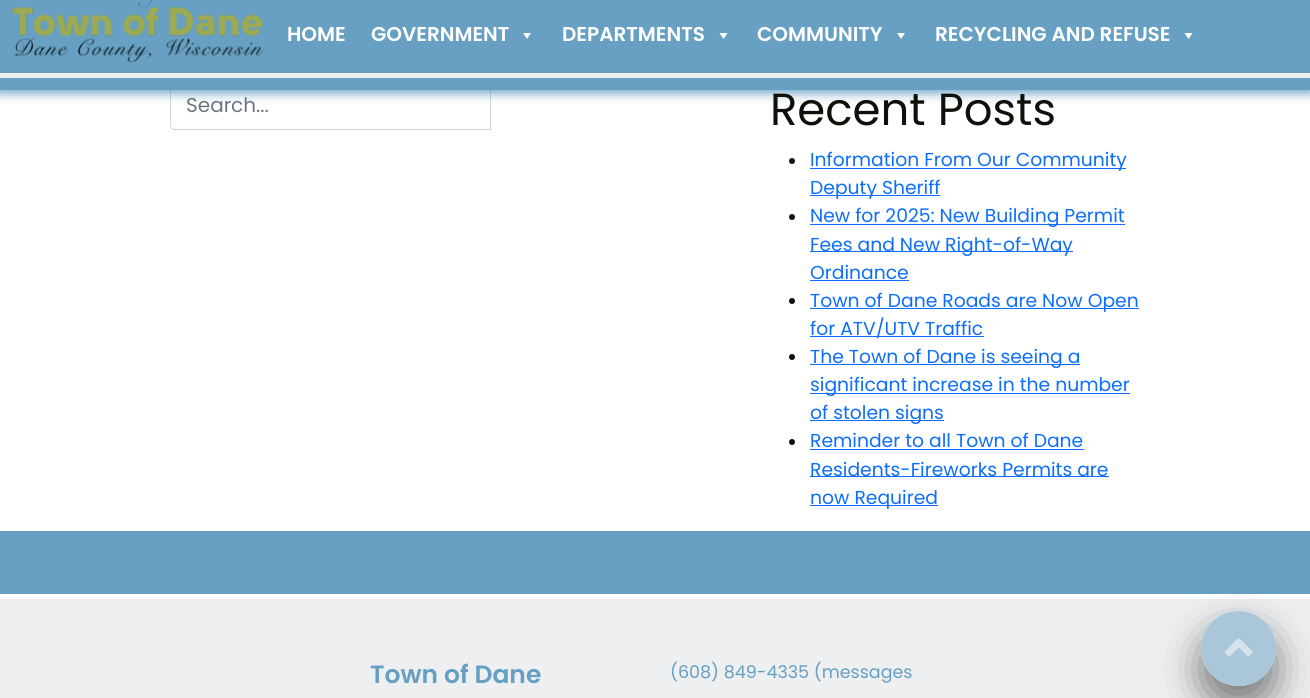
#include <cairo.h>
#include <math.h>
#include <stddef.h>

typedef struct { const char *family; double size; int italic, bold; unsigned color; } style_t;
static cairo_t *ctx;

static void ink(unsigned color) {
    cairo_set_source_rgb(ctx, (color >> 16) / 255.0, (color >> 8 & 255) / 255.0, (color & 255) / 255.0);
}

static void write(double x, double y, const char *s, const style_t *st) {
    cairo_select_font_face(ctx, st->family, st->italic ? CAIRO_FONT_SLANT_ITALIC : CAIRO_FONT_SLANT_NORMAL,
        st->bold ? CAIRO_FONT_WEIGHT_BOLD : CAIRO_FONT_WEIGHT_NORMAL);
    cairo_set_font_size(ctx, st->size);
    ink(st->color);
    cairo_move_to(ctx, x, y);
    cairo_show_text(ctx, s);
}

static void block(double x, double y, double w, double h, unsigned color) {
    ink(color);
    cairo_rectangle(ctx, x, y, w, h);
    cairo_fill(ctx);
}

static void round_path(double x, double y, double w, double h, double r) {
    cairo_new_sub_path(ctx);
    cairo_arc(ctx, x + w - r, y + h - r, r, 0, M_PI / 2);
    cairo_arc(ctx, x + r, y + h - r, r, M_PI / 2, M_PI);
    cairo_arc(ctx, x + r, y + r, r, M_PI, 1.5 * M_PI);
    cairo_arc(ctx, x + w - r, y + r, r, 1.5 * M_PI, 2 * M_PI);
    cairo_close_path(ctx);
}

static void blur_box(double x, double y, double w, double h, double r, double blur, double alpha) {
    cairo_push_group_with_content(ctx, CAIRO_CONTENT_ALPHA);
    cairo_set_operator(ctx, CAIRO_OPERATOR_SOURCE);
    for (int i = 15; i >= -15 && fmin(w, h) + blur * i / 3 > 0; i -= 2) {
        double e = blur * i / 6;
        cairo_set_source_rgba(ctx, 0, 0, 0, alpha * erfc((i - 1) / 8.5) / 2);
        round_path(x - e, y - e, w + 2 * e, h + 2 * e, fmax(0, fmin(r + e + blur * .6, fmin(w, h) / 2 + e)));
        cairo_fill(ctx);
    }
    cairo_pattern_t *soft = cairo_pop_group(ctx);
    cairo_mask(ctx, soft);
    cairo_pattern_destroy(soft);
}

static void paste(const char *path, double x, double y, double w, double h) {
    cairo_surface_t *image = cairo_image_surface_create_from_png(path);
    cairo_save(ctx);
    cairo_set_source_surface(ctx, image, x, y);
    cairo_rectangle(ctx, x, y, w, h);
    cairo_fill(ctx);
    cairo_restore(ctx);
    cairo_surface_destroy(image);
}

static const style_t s1 = {"Poppins SemiBold", 20, 0, 0, 0xffffff};
static const style_t s2 = {"Poppins", 20, 0, 0, 0x6c757d};
static const style_t s3 = {"Poppins", 45, 0, 0, 0x110f09};
static const style_t s4 = {"Poppins", 18.75, 0, 0, 0x0d6efd};
static const style_t s5 = {"Poppins SemiBold", 25, 0, 0, 0x669fc1};
static const style_t s6 = {"Poppins", 17.5, 0, 0, 0x669fc1};

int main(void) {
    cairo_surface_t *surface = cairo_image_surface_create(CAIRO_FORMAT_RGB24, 1310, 698);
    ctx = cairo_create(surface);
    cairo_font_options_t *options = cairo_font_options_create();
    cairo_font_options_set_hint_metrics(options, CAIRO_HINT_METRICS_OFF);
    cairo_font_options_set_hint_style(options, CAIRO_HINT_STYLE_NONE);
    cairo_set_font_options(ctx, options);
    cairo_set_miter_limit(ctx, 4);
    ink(0xffffff);
    cairo_paint(ctx);
    paste("pic1.png", 138, 0, 27, 8);
    cairo_new_path(ctx);
    cairo_move_to(ctx, 175, 83.5);
    cairo_line_to(ctx, 490.5, 83.5);
    cairo_line_to(ctx, 490.5, 129.5);
    cairo_line_to(ctx, 175, 129.5);
    cairo_curve_to(ctx, 172.5, 129.5, 170.5, 127.5, 170.5, 125);
    cairo_line_to(ctx, 170.5, 88);
    cairo_curve_to(ctx, 170.5, 85.5, 172.5, 83.5, 175, 83.5);
    cairo_close_path(ctx);
    ink(0xced4da);
    cairo_set_line_width(ctx, 1);
    cairo_stroke(ctx);
    cairo_save(ctx);
    cairo_rectangle(ctx, 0, 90, 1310, 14);
    cairo_clip(ctx);
    ink(0x5796bc);
    blur_box(-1, 0, 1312, 93, 0, 5.5, 0.9);
    cairo_restore(ctx);
    cairo_set_source_rgba(ctx, 0.341, 0.588, 0.737, 0.9);
    cairo_rectangle(ctx, 0, 0, 1310, 90);
    cairo_fill(ctx);
    paste("pic2.png", 12, 6, 253, 57);
    write(287, 41, "HOME", &s1);
    write(371, 41, "GOVERNMENT", &s1);
    cairo_new_path(ctx);
    cairo_move_to(ctx, 531, 33);
    cairo_line_to(ctx, 527, 39);
    cairo_line_to(ctx, 523, 33);
    cairo_close_path(ctx);
    cairo_fill(ctx);
    write(562, 41, "DEPARTMENTS", &s1);
    cairo_new_path(ctx);
    cairo_move_to(ctx, 727.5, 33);
    cairo_line_to(ctx, 723.5, 39);
    cairo_line_to(ctx, 719.5, 33);
    cairo_close_path(ctx);
    cairo_fill(ctx);
    write(757, 41, "COMMUNITY", &s1);
    cairo_new_path(ctx);
    cairo_move_to(ctx, 905, 33);
    cairo_line_to(ctx, 901, 39);
    cairo_line_to(ctx, 897, 33);
    cairo_close_path(ctx);
    cairo_fill(ctx);
    write(935, 41, "RECYCLING AND REFUSE", &s1);
    cairo_new_path(ctx);
    cairo_move_to(ctx, 1192.5, 33);
    cairo_line_to(ctx, 1188.5, 39);
    cairo_line_to(ctx, 1184.5, 33);
    cairo_close_path(ctx);
    cairo_fill(ctx);
    block(0, 73, 1310, 5, 0xedeff0);
    write(186, 112, "Search...", &s2);
    write(770, 125, "Recent Posts", &s3);
    cairo_new_path(ctx);
    cairo_arc(ctx, 792, 161, 3, 0, 2 * M_PI);
    cairo_fill(ctx);
    block(810, 168, 316, 1, 0x0d6efd);
    write(810, 166, "Information From Our Community", &s4);
    block(810, 195, 130, 1, 0x0d6efd);
    write(810, 194, "Deputy Sheriff", &s4);
    ink(0x110f09);
    cairo_new_path(ctx);
    cairo_arc(ctx, 792, 217, 3, 0, 2 * M_PI);
    cairo_fill(ctx);
    block(810, 224, 315, 1, 0x0d6efd);
    write(810, 222, "New for 2025: New Building Permit", &s4);
    block(810, 251, 263, 1, 0x0d6efd);
    write(810, 251, "Fees and New Right-of-Way", &s4);
    write(810, 279, "Ordinance", &s4);
    block(810, 280, 99, 1, 0x0d6efd);
    ink(0x110f09);
    cairo_new_path(ctx);
    cairo_arc(ctx, 792, 301, 3, 0, 2 * M_PI);
    cairo_fill(ctx);
    block(810, 308, 329, 1, 0x0d6efd);
    write(810, 307, "Town of Dane Roads are Now Open", &s4);
    block(810, 336, 174, 1, 0x0d6efd);
    write(810, 335, "for ATV/UTV Traffic", &s4);
    ink(0x110f09);
    cairo_new_path(ctx);
    cairo_arc(ctx, 792, 357, 3, 0, 2 * M_PI);
    cairo_fill(ctx);
    block(810, 364, 270, 1, 0x0d6efd);
    write(810, 363, "The Town of Dane is seeing a", &s4);
    block(810, 393, 320, 1, 0x0d6efd);
    write(810, 391, "significant increase in the number", &s4);
    block(810, 420, 134, 1, 0x0d6efd);
    write(810, 419, "of stolen signs", &s4);
    ink(0x110f09);
    cairo_new_path(ctx);
    cairo_arc(ctx, 792, 442, 3, 0, 2 * M_PI);
    cairo_fill(ctx);
    write(810, 447, "Reminder to all Town of Dane", &s4);
    block(810, 449, 274, 1, 0x0d6efd);
    block(810, 476, 299, 1, 0x0d6efd);
    write(810, 476, "Residents-Fireworks Permits are", &s4);
    block(810, 505, 128, 1, 0x0d6efd);
    write(810, 504, "now Required", &s4);
    block(0, 599, 1310, 99, 0xedeff0);
    block(0, 531, 1310, 63, 0x669fc1);
    write(370, 683, "Town of Dane", &s5);
    write(670, 678, "(608) 849-4335 (messages", &s6);
    cairo_save(ctx);
    cairo_set_fill_rule(ctx, CAIRO_FILL_RULE_EVEN_ODD);
    cairo_new_path(ctx);
    cairo_move_to(ctx, 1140, 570);
    cairo_line_to(ctx, 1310, 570);
    cairo_line_to(ctx, 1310, 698);
    cairo_line_to(ctx, 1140, 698);
    cairo_close_path(ctx);
    cairo_move_to(ctx, 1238.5, 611);
    cairo_curve_to(ctx, 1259, 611, 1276, 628, 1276, 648.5);
    cairo_curve_to(ctx, 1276, 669, 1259, 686, 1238.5, 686);
    cairo_curve_to(ctx, 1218, 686, 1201, 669, 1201, 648.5);
    cairo_curve_to(ctx, 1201, 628, 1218, 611, 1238.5, 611);
    cairo_close_path(ctx);
    cairo_clip(ctx);
    ink(0x000000);
    blur_box(1201, 631, 75, 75, 37.5, 20, 0.5);
    cairo_restore(ctx);
    cairo_set_source_rgba(ctx, 0.635, 0.765, 0.839, 0.9);
    cairo_arc(ctx, 1238.5, 648.5, 37.5, 0, 2 * M_PI);
    cairo_fill(ctx);
    paste("pic3.png", 1225, 638, 28, 19);
    cairo_surface_write_to_png(surface, "screenshot.png");
    cairo_font_options_destroy(options);
    cairo_destroy(ctx);
    cairo_surface_destroy(surface);
    return 0;
}
